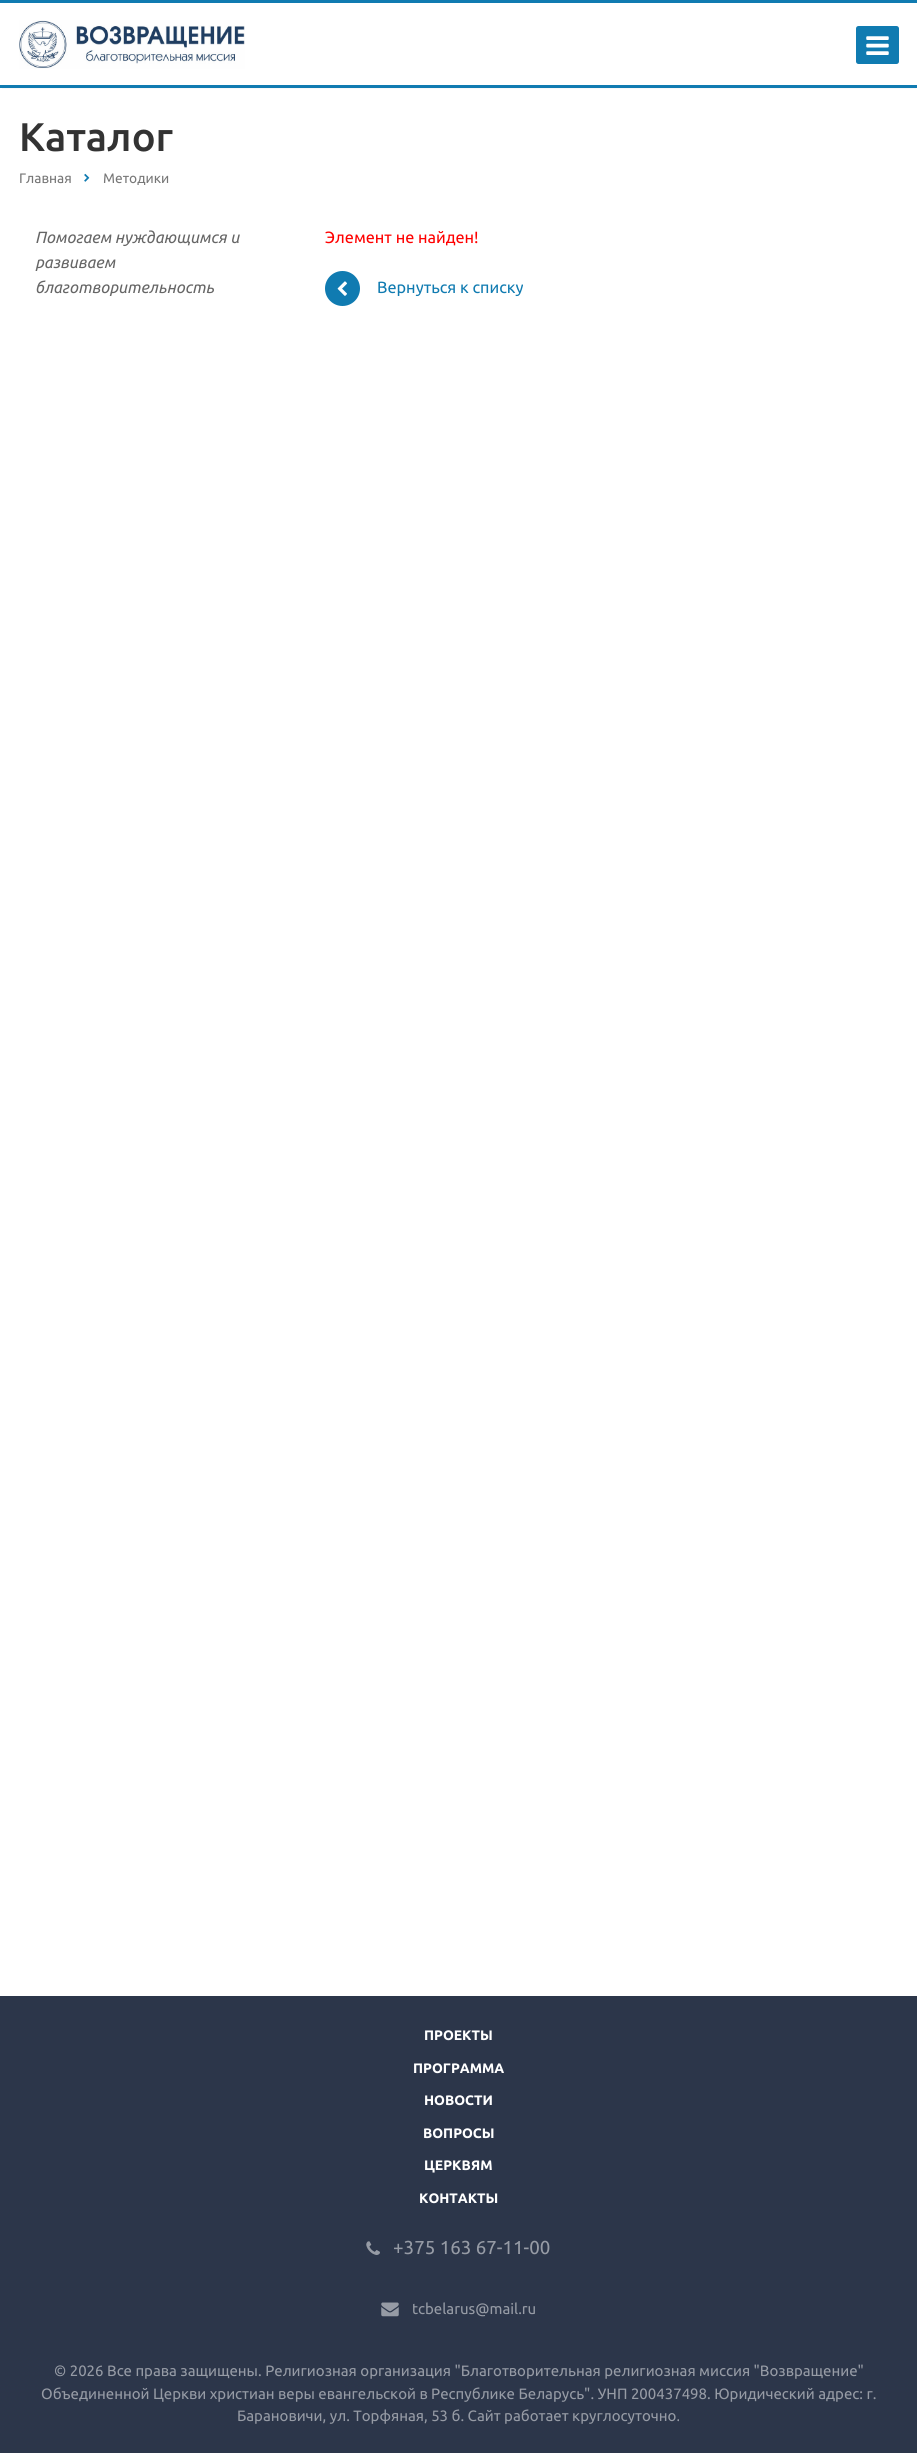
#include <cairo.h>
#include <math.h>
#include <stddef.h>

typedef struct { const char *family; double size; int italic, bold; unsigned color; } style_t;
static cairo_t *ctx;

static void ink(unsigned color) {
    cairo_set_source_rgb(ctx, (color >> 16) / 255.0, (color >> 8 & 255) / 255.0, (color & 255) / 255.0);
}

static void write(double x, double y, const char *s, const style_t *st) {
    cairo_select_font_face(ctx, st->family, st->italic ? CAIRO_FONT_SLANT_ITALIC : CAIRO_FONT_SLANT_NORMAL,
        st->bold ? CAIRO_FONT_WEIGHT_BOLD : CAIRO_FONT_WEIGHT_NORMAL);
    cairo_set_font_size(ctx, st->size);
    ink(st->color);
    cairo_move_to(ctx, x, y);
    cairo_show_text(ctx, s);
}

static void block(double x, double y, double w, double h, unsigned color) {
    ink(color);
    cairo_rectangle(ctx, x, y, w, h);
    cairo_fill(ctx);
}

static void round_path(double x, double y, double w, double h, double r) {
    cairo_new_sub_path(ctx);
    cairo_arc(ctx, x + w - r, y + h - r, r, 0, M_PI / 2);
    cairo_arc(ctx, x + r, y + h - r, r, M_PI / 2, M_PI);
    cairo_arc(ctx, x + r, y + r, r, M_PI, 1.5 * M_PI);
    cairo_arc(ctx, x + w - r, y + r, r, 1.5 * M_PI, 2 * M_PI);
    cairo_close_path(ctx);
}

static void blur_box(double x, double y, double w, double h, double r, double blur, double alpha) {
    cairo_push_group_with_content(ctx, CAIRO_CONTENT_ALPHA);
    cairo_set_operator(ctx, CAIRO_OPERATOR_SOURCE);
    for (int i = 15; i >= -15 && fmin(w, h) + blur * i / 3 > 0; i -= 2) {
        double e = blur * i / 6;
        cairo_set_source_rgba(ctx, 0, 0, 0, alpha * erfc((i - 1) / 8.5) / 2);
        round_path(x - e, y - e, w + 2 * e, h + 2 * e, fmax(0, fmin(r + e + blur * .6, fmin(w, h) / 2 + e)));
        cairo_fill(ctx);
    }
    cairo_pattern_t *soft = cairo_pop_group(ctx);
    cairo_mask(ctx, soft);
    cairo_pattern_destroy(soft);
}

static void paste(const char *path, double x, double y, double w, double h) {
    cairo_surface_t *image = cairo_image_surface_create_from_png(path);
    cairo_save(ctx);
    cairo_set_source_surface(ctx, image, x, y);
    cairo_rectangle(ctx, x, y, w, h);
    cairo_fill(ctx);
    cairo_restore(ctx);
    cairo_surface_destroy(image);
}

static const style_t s1 = {"Ubuntu Medium", 40, 0, 0, 0x333333};
static const style_t s2 = {"Ubuntu", 13.75, 0, 0, 0x777777};
static const style_t s3 = {"Ubuntu", 16.25, 1, 0, 0x666666};
static const style_t s4 = {"Ubuntu", 16.25, 0, 0, 0xff0000};
static const style_t s5 = {"Ubuntu", 16.25, 0, 0, 0x107bb1};
static const style_t s6 = {"Ubuntu", 13.75, 0, 1, 0xffffff};
static const style_t s7 = {"Ubuntu", 18.75, 0, 0, 0x969ba5};
static const style_t s8 = {"Ubuntu", 15, 0, 0, 0x969ba5};

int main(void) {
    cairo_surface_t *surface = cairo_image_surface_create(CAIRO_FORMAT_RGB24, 917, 2453);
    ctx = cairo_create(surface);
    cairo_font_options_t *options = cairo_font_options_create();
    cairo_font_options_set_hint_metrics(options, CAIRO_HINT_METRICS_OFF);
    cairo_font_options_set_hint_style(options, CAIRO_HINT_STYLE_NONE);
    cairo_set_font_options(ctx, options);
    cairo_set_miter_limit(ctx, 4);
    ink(0xffffff);
    cairo_paint(ctx);
    cairo_save(ctx);
    cairo_rectangle(ctx, 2, 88, 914, 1);
    cairo_clip(ctx);
    ink(0x000000);
    blur_box(0, 1, 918, 85, 0, 3, 0.14);
    cairo_restore(ctx);
    block(0, 0, 917, 3, 0x107bb1);
    paste("pic1.png", 19, 20, 226, 49);
    round_path(856, 26, 43, 38, 2.5);
    cairo_fill(ctx);
    paste("pic2.png", 866, 36, 23, 19);
    block(0, 85, 917, 3, 0x107bb1);
    write(19, 151, "Каталог", &s1);
    write(19, 183, "Главная", &s2);
    paste("pic3.png", 84, 173, 6, 9);
    write(103, 183, "Методики", &s2);
    write(35, 243, "Помогаем нуждающимся и", &s3);
    write(35, 268, "развиваем", &s3);
    write(35, 293, "благотворительность", &s3);
    write(325, 243, "Элемент не найден!", &s4);
    ink(0x107bb1);
    cairo_new_path(ctx);
    cairo_arc(ctx, 342.5, 288.5, 17.5, 0, 2 * M_PI);
    cairo_fill(ctx);
    paste("pic4.png", 337, 281, 10, 15);
    write(377, 293, "Вернуться к списку", &s5);
    block(0, 1996, 917, 457, 0x2c364a);
    write(424, 2040, "ПРОЕКТЫ", &s6);
    write(413, 2073, "ПРОГРАММА", &s6);
    write(424, 2105, "НОВОСТИ", &s6);
    write(423, 2138, "ВОПРОСЫ", &s6);
    write(424, 2170, "ЦЕРКВЯМ", &s6);
    write(419, 2203, "КОНТАКТЫ", &s6);
    paste("pic5.png", 366, 2241, 14, 14);
    write(393, 2254, "+375 163 67-11-00", &s7);
    paste("pic6.png", 381, 2302, 18, 15);
    write(412, 2314, "tcbelarus@mail.ru", &s8);
    write(54, 2376, "© 2026 Все права защищены. Религиозная организация \"Благотворительная религиозная миссия \"Возвращение\"", &s8);
    write(41, 2399, "Объединенной Церкви христиан веры евангельской в Республике Беларусь\". УНП 200437498. Юридический адрес: г.", &s8);
    write(237, 2421, "Барановичи, ул. Торфяная, 53 б. Сайт работает круглосуточно.", &s8);
    cairo_surface_write_to_png(surface, "screenshot.png");
    cairo_font_options_destroy(options);
    cairo_destroy(ctx);
    cairo_surface_destroy(surface);
    return 0;
}
